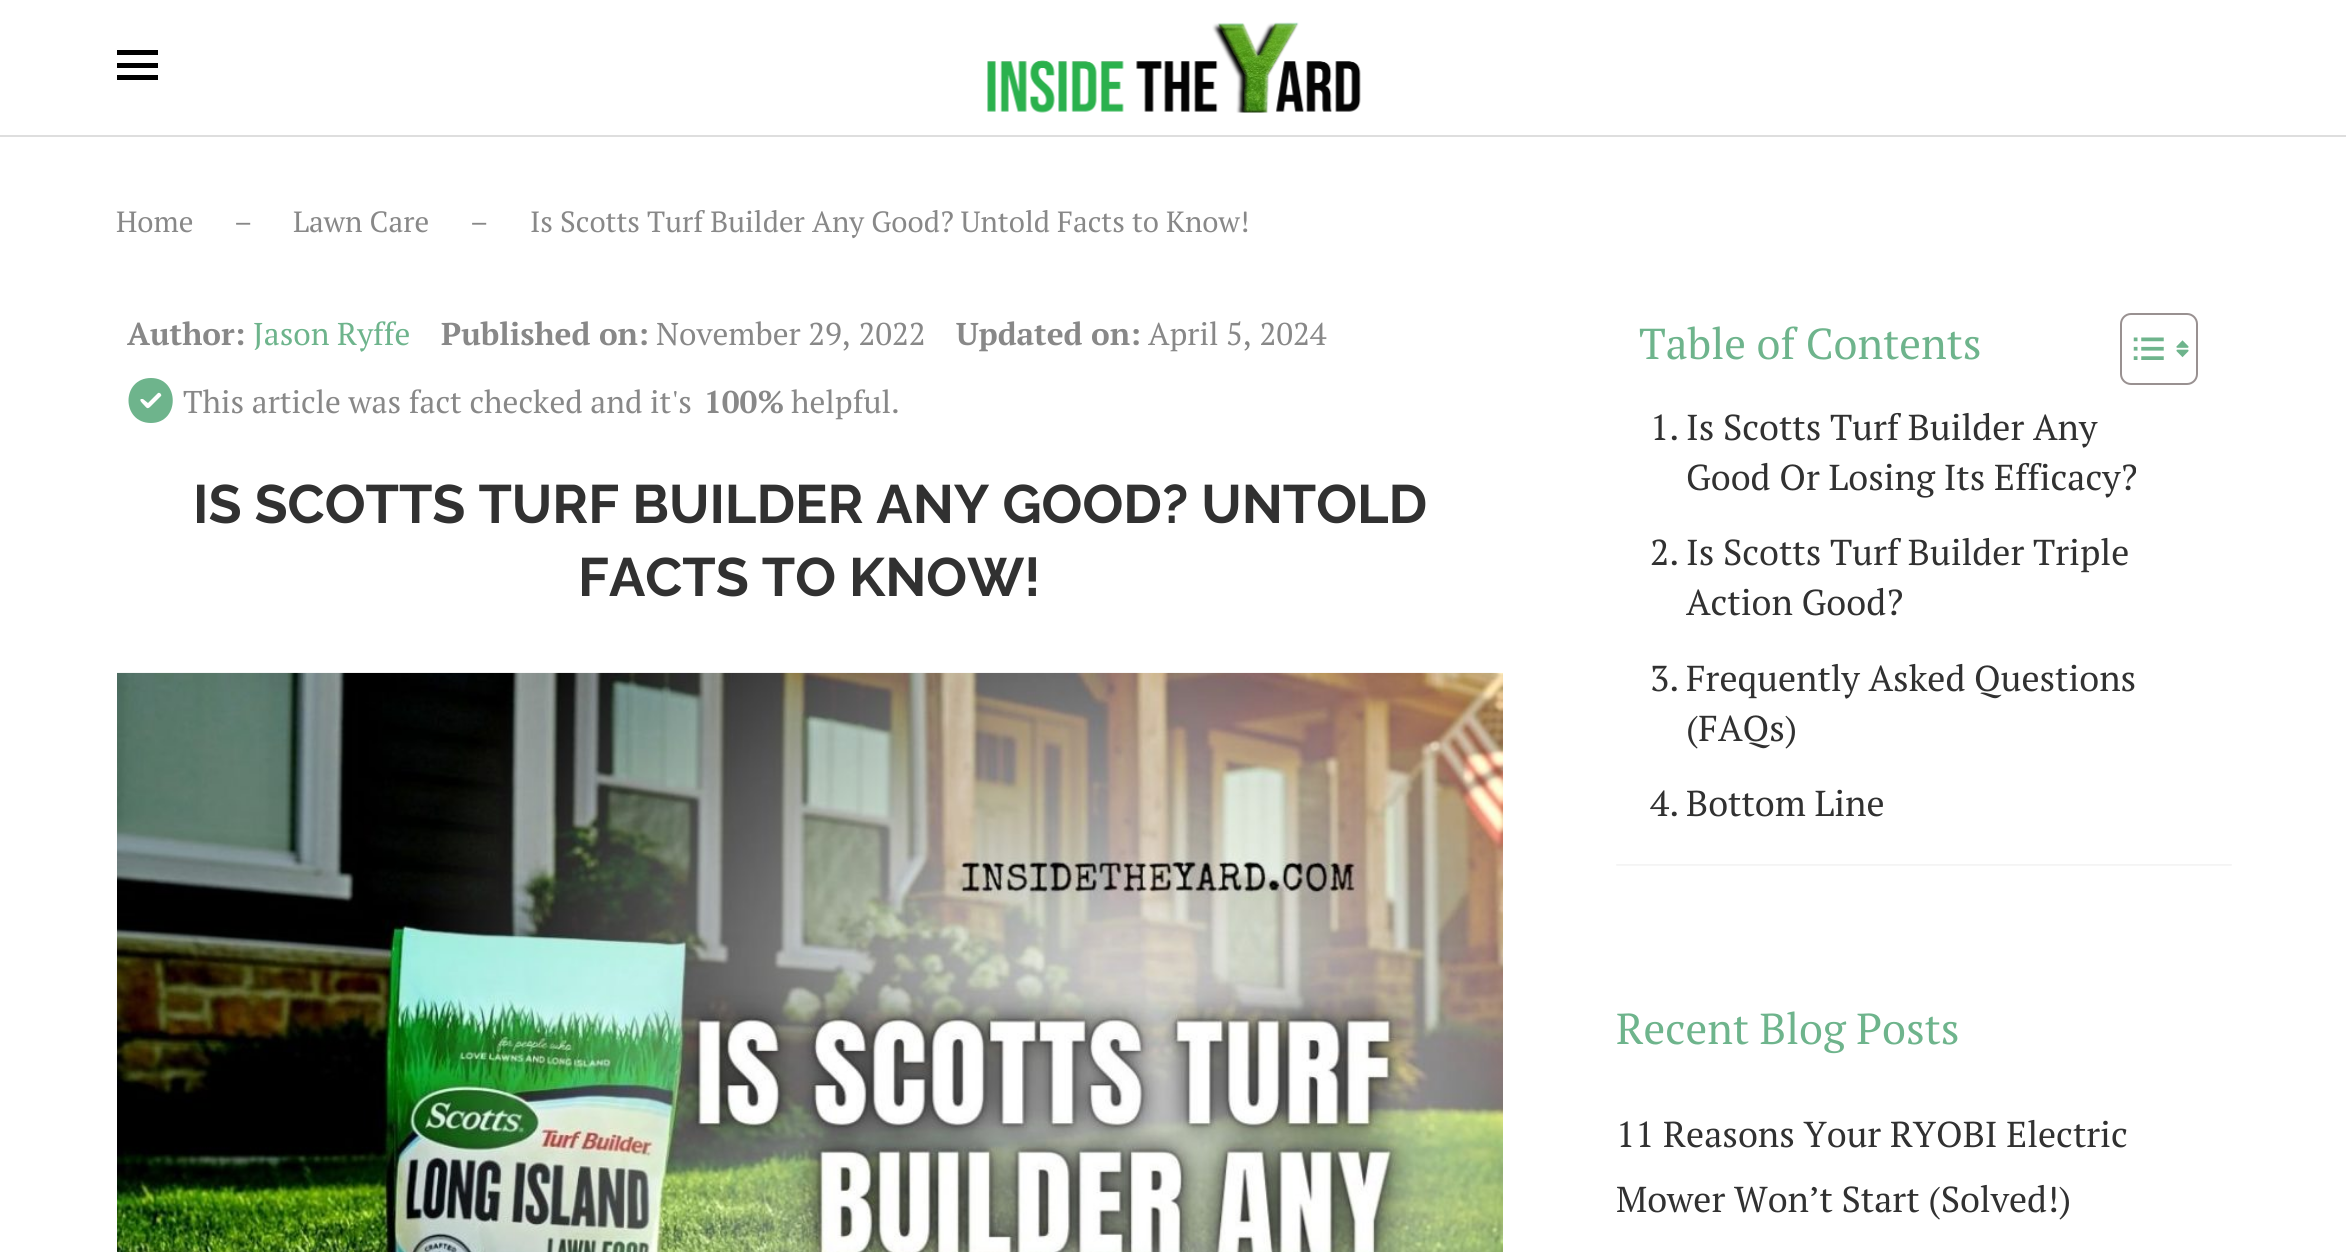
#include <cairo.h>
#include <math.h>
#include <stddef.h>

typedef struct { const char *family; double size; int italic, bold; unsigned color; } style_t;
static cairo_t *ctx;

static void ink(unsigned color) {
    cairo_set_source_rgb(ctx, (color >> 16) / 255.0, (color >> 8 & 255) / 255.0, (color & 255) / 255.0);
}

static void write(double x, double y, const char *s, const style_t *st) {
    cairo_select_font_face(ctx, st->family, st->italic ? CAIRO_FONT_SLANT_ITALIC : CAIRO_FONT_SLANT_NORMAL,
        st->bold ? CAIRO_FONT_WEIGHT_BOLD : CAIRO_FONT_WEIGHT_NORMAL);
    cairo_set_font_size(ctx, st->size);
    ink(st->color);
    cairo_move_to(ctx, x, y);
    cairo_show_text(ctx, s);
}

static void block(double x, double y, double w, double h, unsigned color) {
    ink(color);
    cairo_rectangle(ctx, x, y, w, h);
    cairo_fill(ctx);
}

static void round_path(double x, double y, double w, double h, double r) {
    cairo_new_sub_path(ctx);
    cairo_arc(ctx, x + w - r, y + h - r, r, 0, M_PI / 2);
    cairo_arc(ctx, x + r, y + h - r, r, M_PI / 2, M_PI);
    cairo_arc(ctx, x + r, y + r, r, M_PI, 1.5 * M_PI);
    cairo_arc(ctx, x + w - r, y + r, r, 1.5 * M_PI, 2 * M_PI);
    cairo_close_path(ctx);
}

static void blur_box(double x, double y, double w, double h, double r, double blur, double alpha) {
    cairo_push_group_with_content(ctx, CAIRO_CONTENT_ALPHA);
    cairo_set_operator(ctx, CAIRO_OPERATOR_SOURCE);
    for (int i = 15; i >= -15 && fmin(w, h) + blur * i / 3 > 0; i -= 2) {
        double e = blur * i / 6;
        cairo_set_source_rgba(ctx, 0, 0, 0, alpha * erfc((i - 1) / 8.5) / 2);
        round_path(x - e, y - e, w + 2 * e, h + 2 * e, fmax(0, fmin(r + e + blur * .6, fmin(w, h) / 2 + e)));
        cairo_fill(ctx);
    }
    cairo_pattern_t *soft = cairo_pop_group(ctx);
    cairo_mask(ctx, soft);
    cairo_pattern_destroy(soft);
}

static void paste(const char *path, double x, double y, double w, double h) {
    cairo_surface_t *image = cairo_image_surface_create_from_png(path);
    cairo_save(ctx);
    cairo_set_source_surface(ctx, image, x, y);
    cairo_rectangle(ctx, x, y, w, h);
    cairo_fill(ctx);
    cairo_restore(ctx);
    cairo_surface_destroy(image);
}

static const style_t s1 = {"PT Serif", 29.25, 0, 0, 0x888888};
static const style_t s2 = {"PT Serif", 31.5, 0, 1, 0x888888};
static const style_t s3 = {"PT Serif", 31.5, 0, 0, 0x6eb48c};
static const style_t s4 = {"PT Serif", 31.5, 0, 0, 0x888888};
static const style_t s5 = {"Raleway", 54, 0, 1, 0x313131};
static const style_t s6 = {"PT Serif", 43.25, 0, 0, 0x6eb48c};
static const style_t s7 = {"PT Serif", 36, 0, 0, 0x313131};

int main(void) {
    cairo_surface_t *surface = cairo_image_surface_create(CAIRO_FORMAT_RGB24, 2346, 1252);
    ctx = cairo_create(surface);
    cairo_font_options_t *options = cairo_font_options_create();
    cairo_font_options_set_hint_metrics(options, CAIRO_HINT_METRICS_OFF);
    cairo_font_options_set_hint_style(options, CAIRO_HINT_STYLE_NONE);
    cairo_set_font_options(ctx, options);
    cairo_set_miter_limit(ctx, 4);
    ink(0xffffff);
    cairo_paint(ctx);
    block(0, 135, 2346, 2, 0xdedede);
    block(117, 50, 41, 5, 0x000000);
    block(117, 63, 41, 5, 0x000000);
    block(117, 75, 41, 5, 0x000000);
    paste("pic1.png", 987, 22, 374, 91);
    write(116, 232, "Home", &s1);
    write(234, 232, "–", &s1);
    write(293, 232, "Lawn Care", &s1);
    write(470, 232, "–", &s1);
    write(530, 232, "Is Scotts Turf Builder Any Good? Untold Facts to Know!", &s1);
    write(127, 345, "Author:", &s2);
    write(253, 345, "Jason Ryffe", &s3);
    write(441, 345, "Published on:", &s2);
    write(656, 345, "November 29, 2022", &s4);
    write(956, 345, "Updated on:", &s2);
    write(1148, 345, "April 5, 2024", &s4);
    ink(0x6eb48c);
    cairo_new_path(ctx);
    cairo_move_to(ctx, 151, 423);
    cairo_curve_to(ctx, 180, 423, 180, 378, 151, 378);
    cairo_curve_to(ctx, 121, 378, 121, 423, 151, 423);
    cairo_close_path(ctx);
    cairo_move_to(ctx, 161, 396);
    cairo_line_to(ctx, 151, 406);
    cairo_curve_to(ctx, 147, 410, 147, 408, 143, 404);
    cairo_curve_to(ctx, 142, 403, 139, 400, 141, 399);
    cairo_line_to(ctx, 143, 399);
    cairo_line_to(ctx, 148, 403);
    cairo_line_to(ctx, 158, 393);
    cairo_curve_to(ctx, 160, 392, 162, 395, 161, 396);
    cairo_close_path(ctx);
    cairo_fill(ctx);
    write(183, 413, "This article was fact checked and it's", &s4);
    write(704, 413, "100%", &s2);
    write(791, 413, "helpful.", &s4);
    write(193, 523, "IS SCOTTS TURF BUILDER ANY GOOD? UNTOLD", &s5);
    write(578, 596, "FACTS TO KNOW!", &s5);
    paste("pic2.png", 117, 672, 1386, 580);
    cairo_save(ctx);
    cairo_rectangle(ctx, 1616, 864, 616, 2);
    cairo_clip(ctx);
    ink(0x000000);
    blur_box(1616, 290, 616, 576, 0, 1, 0.05);
    cairo_restore(ctx);
    write(1639, 359, "Table of Contents", &s6);
    round_path(2121, 314, 76, 70, 10);
    ink(0x999191);
    cairo_stroke(ctx);
    paste("pic3.png", 2133, 337, 31, 23);
    paste("pic4.png", 2176, 340, 13, 18);
    write(1650, 440, "1.", &s7);
    write(1686, 440, "Is Scotts Turf Builder Any", &s7);
    write(1686, 490, "Good Or Losing Its Efficacy?", &s7);
    write(1650, 565, "2.", &s7);
    write(1686, 565, "Is Scotts Turf Builder Triple", &s7);
    write(1686, 615, "Action Good?", &s7);
    write(1650, 691, "3.", &s7);
    write(1686, 691, "Frequently Asked Questions", &s7);
    write(1686, 741, "(FAQs)", &s7);
    write(1650, 816, "4.", &s7);
    write(1686, 816, "Bottom Line", &s7);
    write(1616, 1044, "Recent Blog Posts", &s6);
    write(1616, 1147, "11 Reasons Your RYOBI Electric", &s7);
    write(1616, 1212, "Mower Won’t Start (Solved!)", &s7);
    cairo_surface_write_to_png(surface, "screenshot.png");
    cairo_font_options_destroy(options);
    cairo_destroy(ctx);
    cairo_surface_destroy(surface);
    return 0;
}
